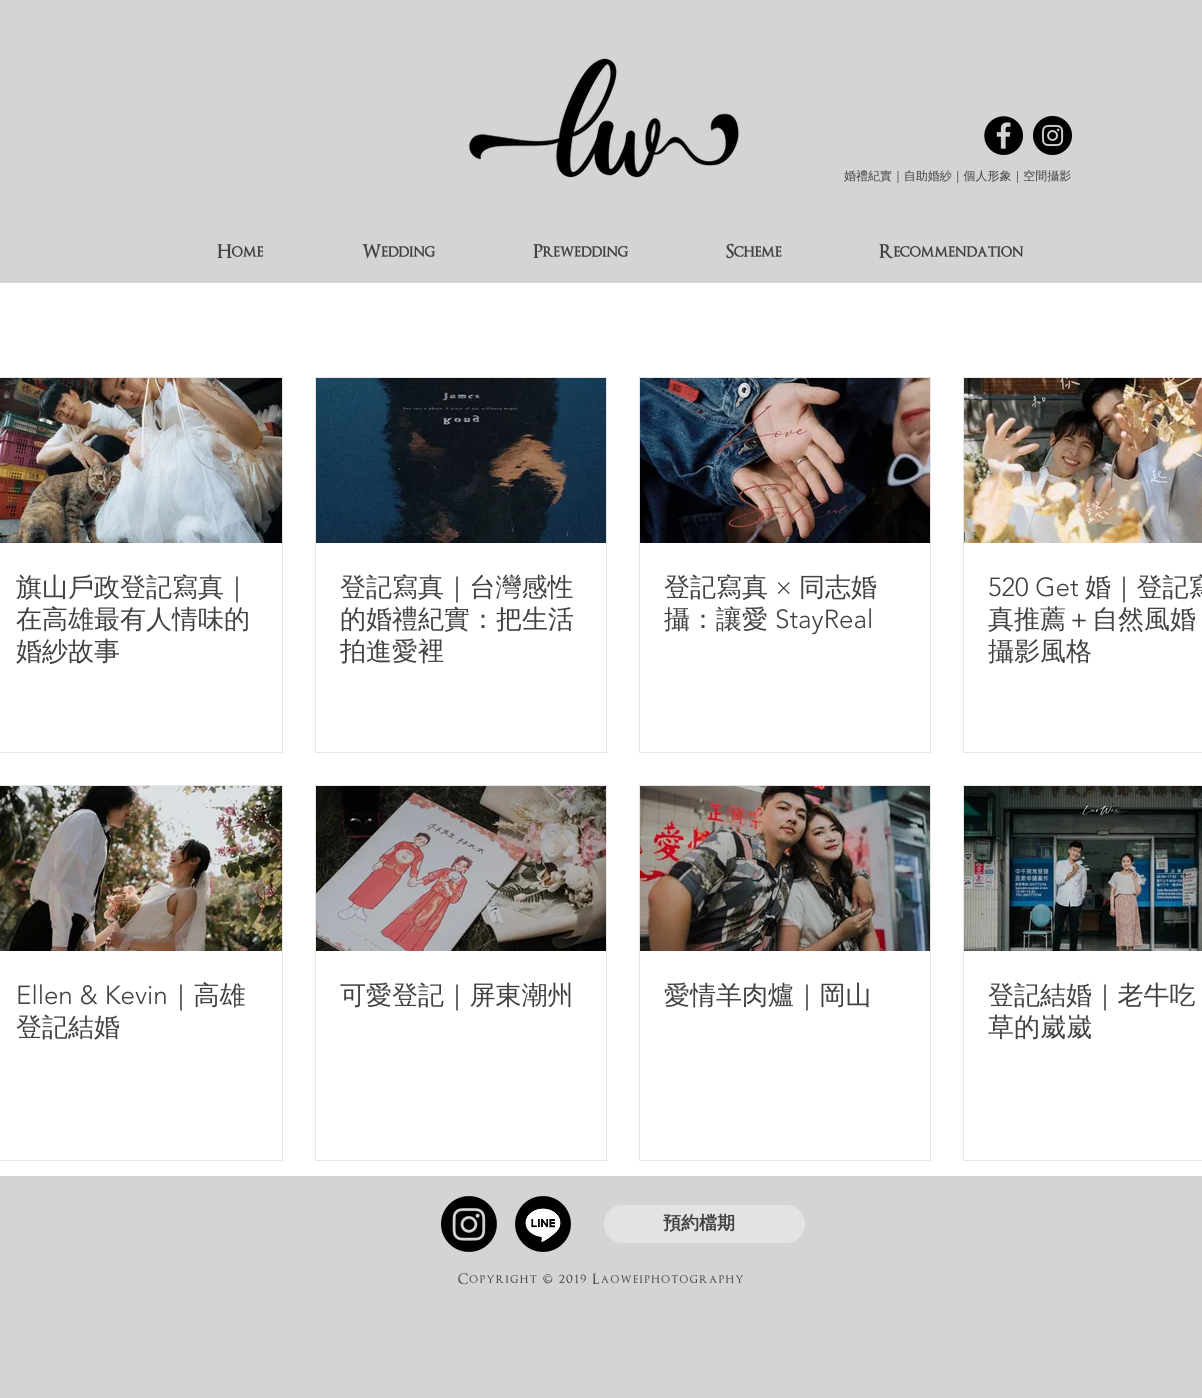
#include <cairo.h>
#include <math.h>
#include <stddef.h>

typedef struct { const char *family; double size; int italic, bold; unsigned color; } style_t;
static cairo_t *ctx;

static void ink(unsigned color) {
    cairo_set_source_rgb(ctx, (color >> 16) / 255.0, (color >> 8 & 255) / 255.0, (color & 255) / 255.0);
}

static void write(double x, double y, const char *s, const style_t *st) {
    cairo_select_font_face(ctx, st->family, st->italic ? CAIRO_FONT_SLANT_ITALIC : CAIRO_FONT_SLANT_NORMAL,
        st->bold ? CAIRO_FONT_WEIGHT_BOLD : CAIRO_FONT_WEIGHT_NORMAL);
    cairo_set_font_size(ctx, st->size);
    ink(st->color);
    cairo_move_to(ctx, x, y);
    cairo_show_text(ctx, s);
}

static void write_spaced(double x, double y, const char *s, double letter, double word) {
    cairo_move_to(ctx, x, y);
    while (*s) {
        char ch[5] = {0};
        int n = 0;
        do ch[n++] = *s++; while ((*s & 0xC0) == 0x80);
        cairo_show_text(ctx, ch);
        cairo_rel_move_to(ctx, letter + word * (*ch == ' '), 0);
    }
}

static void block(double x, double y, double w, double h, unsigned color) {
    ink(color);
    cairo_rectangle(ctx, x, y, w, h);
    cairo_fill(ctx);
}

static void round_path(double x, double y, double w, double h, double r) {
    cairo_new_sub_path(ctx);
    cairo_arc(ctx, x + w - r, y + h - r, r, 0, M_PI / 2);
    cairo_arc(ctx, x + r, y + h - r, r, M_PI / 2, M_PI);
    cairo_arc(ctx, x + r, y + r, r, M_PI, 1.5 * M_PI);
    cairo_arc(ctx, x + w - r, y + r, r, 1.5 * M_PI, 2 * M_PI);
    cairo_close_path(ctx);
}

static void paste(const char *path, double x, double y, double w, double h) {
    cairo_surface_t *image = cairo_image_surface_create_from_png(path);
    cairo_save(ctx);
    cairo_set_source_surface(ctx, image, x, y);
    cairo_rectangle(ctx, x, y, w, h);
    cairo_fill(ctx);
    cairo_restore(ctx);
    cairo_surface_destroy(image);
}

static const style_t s1 = {"WenQuanYi Zen Hei Medium", 12, 0, 0, 0x414141};
static const style_t s2 = {"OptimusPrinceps", 18, 0, 1, 0x414141};
static const style_t s3 = {"WenQuanYi Zen Hei Medium", 26, 0, 0, 0x414141};
static const style_t s4 = {"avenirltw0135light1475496 Light", 26, 0, 0, 0x414141};
static const style_t s5 = {"WenQuanYi Zen Hei", 18, 0, 1, 0x414141};

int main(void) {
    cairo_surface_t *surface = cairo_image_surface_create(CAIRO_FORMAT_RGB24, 1202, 1398);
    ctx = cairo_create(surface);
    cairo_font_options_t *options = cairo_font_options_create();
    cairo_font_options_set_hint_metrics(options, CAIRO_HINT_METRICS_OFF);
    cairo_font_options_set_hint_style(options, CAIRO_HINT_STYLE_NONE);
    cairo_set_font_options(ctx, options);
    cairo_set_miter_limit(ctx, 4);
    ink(0xd4d4d2);
    cairo_paint(ctx);
    paste("pic1.png", 468, 58, 271, 120);
    paste("pic2.png", 984, 116, 39, 39);
    paste("pic3.png", 1033, 116, 39, 39);
    write(844, 180, "婚禮紀實｜自助婚紗｜個人形象｜空間攝影", &s1);
    write(217, 258, "Home", &s2);
    write(362, 258, "Wedding", &s2);
    write(533, 258, "Prewedding", &s2);
    write(726, 258, "Scheme", &s2);
    write(879, 258, "Recommendation", &s2);
    block(0, 283, 1202, 893, 0xffffff);
    cairo_rectangle(ctx, -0.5, 377.5, 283, 375);
    ink(0xe6e6e6);
    cairo_set_line_width(ctx, 1);
    cairo_stroke(ctx);
    paste("pic4.png", 0, 378, 282, 165);
    write(16, 596, "旗山戶政登記寫真｜", &s3);
    write(16, 628, "在高雄最有人情味的", &s3);
    write(16, 660, "婚紗故事", &s3);
    cairo_rectangle(ctx, 315.5, 377.5, 291, 375);
    ink(0xe6e6e6);
    cairo_stroke(ctx);
    paste("pic5.png", 316, 378, 290, 165);
    write(340, 596, "登記寫真｜台灣感性", &s3);
    write(340, 628, "的婚禮紀實：把生活", &s3);
    write(340, 660, "拍進愛裡", &s3);
    cairo_rectangle(ctx, 639.5, 377.5, 291, 375);
    ink(0xe6e6e6);
    cairo_stroke(ctx);
    paste("pic6.png", 640, 378, 290, 165);
    write(664, 596, "登記寫真", &s3);
    write(775, 596, "×", &s4);
    write(799, 596, "同志婚", &s3);
    write(664, 628, "攝：讓愛", &s3);
    write(775, 628, "StayReal", &s4);
    cairo_rectangle(ctx, 963.5, 377.5, 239, 375);
    ink(0xe6e6e6);
    cairo_stroke(ctx);
    paste("pic7.png", 964, 378, 238, 165);
    write(988, 596, "520 Get", &s4);
    write(1085, 596, "婚｜登記寫", &s3);
    write(988, 628, "真推薦＋自然風婚", &s3);
    write(988, 660, "攝影風格", &s3);
    cairo_rectangle(ctx, -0.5, 785.5, 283, 375);
    ink(0xe6e6e6);
    cairo_stroke(ctx);
    paste("pic8.png", 0, 786, 282, 165);
    write(16, 1004, "Ellen & Kevin", &s4);
    write(168, 1004, "｜高雄", &s3);
    write(16, 1036, "登記結婚", &s3);
    cairo_rectangle(ctx, 315.5, 785.5, 291, 375);
    ink(0xe6e6e6);
    cairo_stroke(ctx);
    paste("pic9.png", 316, 786, 290, 165);
    write(340, 1004, "可愛登記｜屏東潮州", &s3);
    cairo_rectangle(ctx, 639.5, 785.5, 291, 375);
    ink(0xe6e6e6);
    cairo_stroke(ctx);
    paste("pic10.png", 640, 786, 290, 165);
    write(664, 1004, "愛情羊肉爐｜岡山", &s3);
    cairo_rectangle(ctx, 963.5, 785.5, 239, 375);
    ink(0xe6e6e6);
    cairo_stroke(ctx);
    paste("pic11.png", 964, 786, 238, 165);
    write(988, 1004, "登記結婚｜老牛吃", &s3);
    write(988, 1036, "草的崴崴", &s3);
    paste("pic12.png", 441, 1196, 56, 56);
    paste("pic13.png", 515, 1196, 56, 56);
    ink(0xe3e3e1);
    round_path(604, 1205, 201, 38, 19);
    cairo_fill(ctx);
    write(663, 1229, "預約檔期", &s5);
    cairo_select_font_face(ctx, "OptimusPrinceps Medium", CAIRO_FONT_SLANT_NORMAL, CAIRO_FONT_WEIGHT_NORMAL);
    cairo_set_font_size(ctx, 14);
    write_spaced(458, 1284, "Copyright © 2019 Laoweiphotography", 1.4, 0);
    cairo_surface_write_to_png(surface, "screenshot.png");
    cairo_font_options_destroy(options);
    cairo_destroy(ctx);
    cairo_surface_destroy(surface);
    return 0;
}
